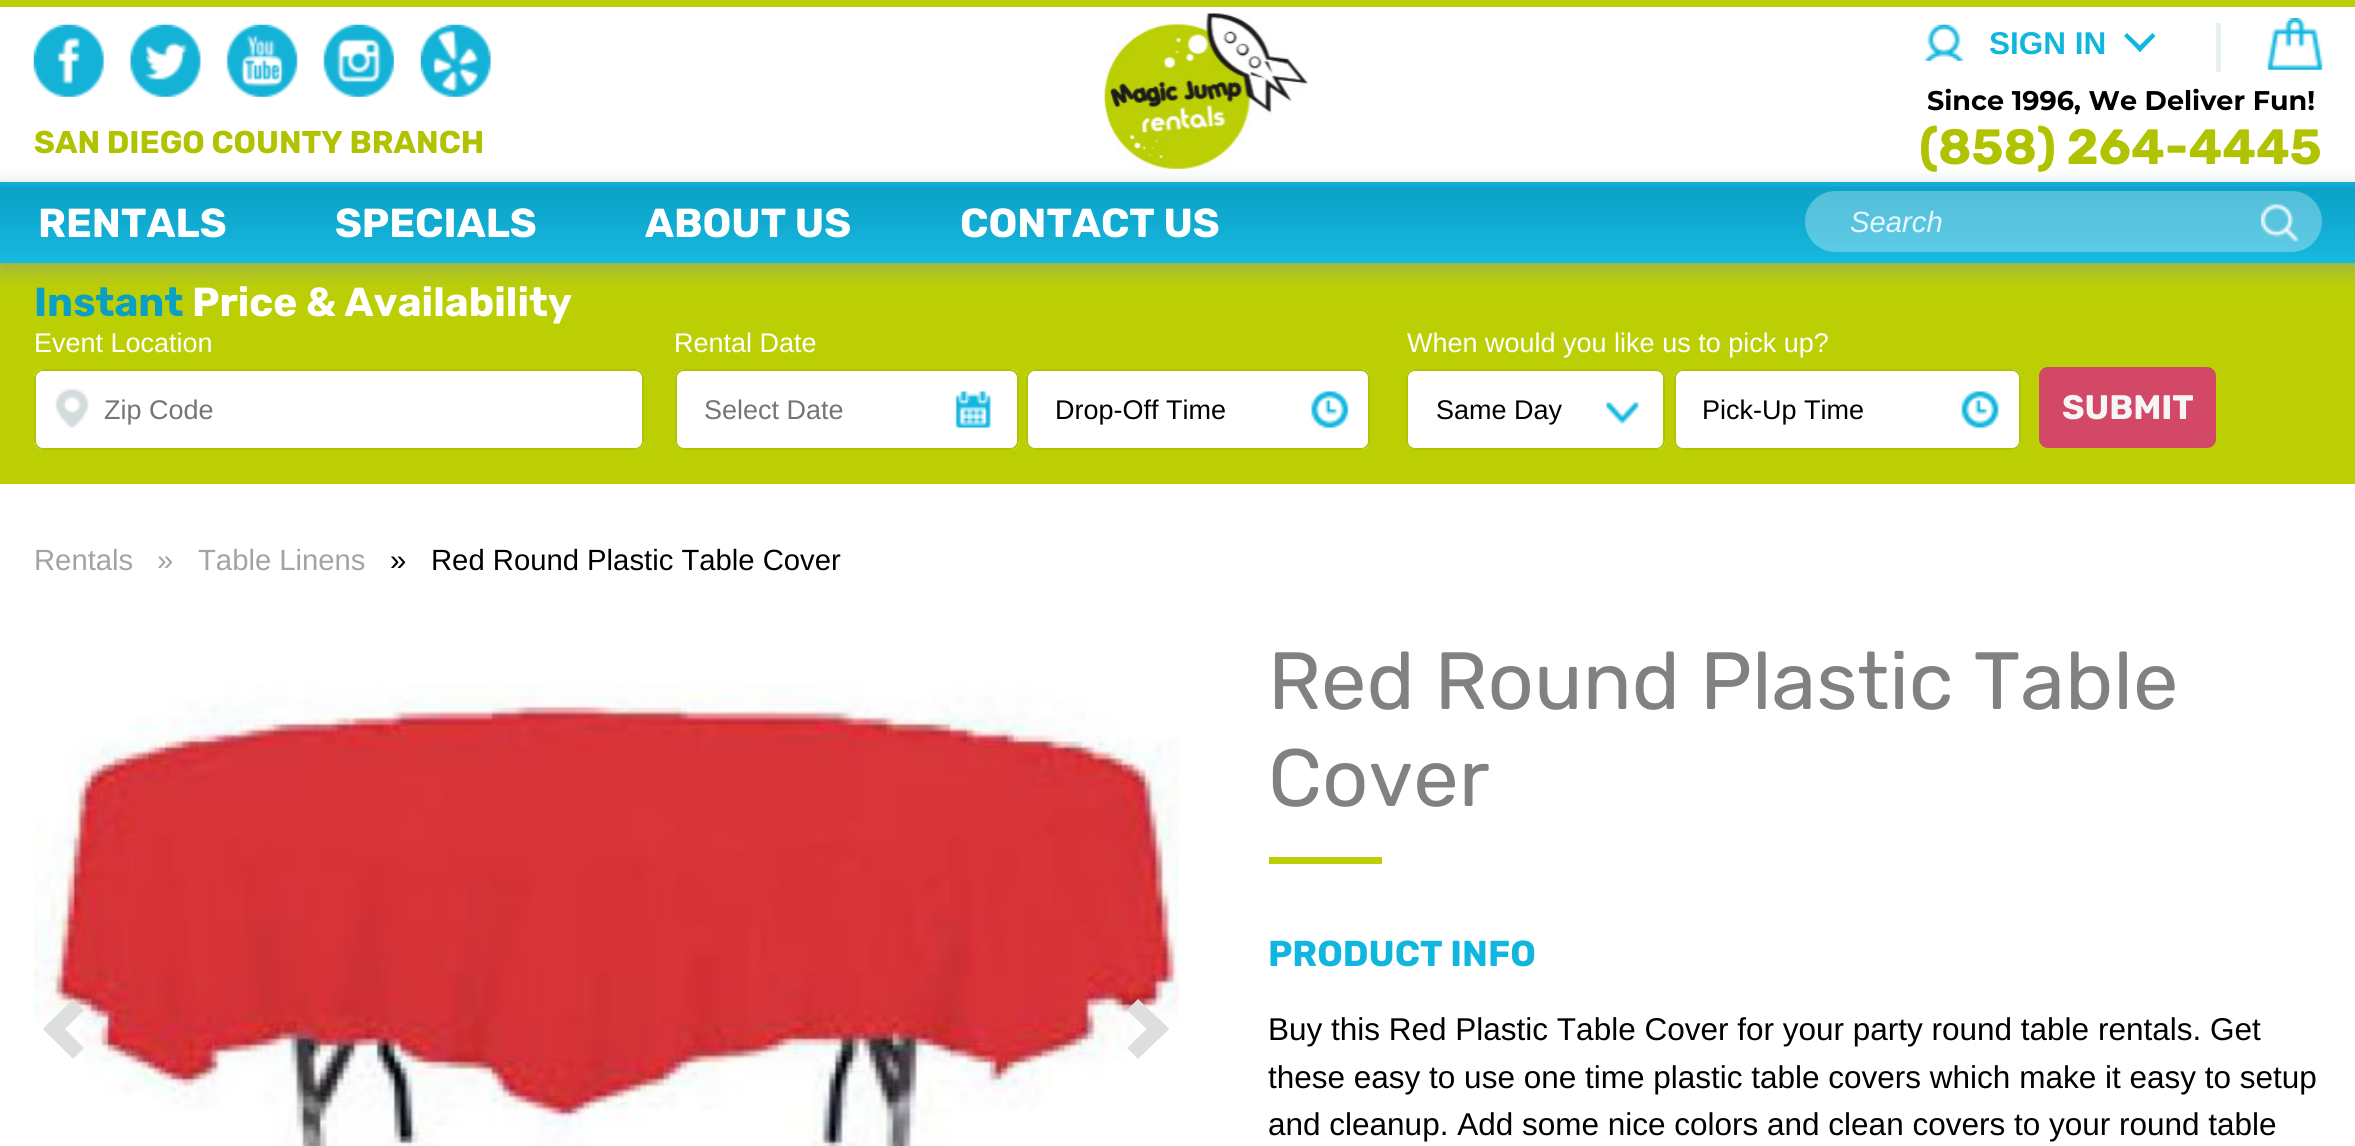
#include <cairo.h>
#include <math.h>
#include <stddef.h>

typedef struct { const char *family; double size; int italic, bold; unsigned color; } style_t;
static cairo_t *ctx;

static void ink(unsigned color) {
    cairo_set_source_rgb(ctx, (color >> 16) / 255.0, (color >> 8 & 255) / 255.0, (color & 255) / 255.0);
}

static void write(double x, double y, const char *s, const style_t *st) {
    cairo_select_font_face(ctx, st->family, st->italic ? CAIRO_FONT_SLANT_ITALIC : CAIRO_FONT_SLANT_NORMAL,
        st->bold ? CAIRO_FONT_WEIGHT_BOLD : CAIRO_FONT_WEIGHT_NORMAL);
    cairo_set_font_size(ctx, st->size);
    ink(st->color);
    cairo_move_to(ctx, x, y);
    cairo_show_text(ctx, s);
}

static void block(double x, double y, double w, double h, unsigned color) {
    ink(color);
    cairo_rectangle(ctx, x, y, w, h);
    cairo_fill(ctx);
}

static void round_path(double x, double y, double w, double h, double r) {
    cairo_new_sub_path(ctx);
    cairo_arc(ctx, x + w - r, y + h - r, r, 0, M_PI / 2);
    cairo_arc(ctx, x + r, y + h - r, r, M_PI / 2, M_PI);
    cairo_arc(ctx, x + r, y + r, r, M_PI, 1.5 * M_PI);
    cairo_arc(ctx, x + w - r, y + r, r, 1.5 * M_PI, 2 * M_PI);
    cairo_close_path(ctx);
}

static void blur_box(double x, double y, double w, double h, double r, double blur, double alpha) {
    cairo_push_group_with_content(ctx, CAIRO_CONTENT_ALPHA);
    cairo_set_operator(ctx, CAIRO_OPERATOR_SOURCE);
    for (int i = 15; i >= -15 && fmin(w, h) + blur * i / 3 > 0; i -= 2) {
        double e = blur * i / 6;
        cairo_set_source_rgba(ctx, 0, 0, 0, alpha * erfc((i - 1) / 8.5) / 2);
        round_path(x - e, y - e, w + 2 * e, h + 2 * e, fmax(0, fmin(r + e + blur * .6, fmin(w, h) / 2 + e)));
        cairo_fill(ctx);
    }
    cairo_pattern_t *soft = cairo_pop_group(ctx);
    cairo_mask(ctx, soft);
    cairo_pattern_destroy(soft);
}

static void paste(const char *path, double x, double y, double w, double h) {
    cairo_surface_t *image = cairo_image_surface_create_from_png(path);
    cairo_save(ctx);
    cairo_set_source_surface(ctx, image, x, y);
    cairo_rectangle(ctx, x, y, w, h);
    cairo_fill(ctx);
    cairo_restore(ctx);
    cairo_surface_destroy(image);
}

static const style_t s1 = {"Liberation Sans", 31.5, 0, 1, 0x11b6df};
static const style_t s2 = {"Rubik", 31.5, 0, 1, 0xb0c200};
static const style_t s3 = {"Montserrat", 27, 0, 1, 0x000000};
static const style_t s4 = {"Rubik", 49.5, 0, 1, 0xb0c200};
static const style_t s5 = {"Rubik", 40.5, 0, 1, 0xffffff};
static const style_t s6 = {"Liberation Sans", 29.25, 1, 0, 0xe5f8fd};
static const style_t s7 = {"Rubik", 40.5, 0, 1, 0x0c9fc4};
static const style_t s8 = {"Liberation Sans", 27, 0, 0, 0xffffff};
static const style_t s9 = {"Liberation Sans", 27, 0, 0, 0x757575};
static const style_t s10 = {"Liberation Sans", 27, 0, 0, 0x000000};
static const style_t s11 = {"Rubik", 34, 0, 1, 0xf5f5f5};
static const style_t s12 = {"Liberation Sans", 29.25, 0, 0, 0x9fa4a6};
static const style_t s13 = {"Liberation Sans", 29.25, 0, 0, 0x000000};
static const style_t s14 = {"Rubik", 81, 0, 0, 0x818181};
static const style_t s15 = {"Rubik", 36, 0, 1, 0x11b6df};
static const style_t s16 = {"Liberation Sans", 31.5, 0, 0, 0x000000};

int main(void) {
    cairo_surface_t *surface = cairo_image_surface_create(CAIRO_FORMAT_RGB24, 2355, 1146);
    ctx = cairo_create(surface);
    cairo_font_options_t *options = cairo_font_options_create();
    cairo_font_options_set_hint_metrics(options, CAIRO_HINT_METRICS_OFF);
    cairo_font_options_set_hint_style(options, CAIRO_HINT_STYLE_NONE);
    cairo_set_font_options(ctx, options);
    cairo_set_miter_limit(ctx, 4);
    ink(0xffffff);
    cairo_paint(ctx);
    block(0, 0, 2355, 7, 0xbccf05);
    paste("pic1.png", 33, 24, 71, 73);
    paste("pic2.png", 129, 24, 72, 73);
    paste("pic3.png", 226, 24, 72, 73);
    paste("pic4.png", 323, 24, 71, 73);
    paste("pic5.png", 420, 24, 71, 73);
    paste("pic6.png", 1104, 13, 204, 156);
    paste("pic7.png", 1923, 24, 42, 37);
    write(1989, 54, "SIGN IN", &s1);
    cairo_new_path(ctx);
    cairo_move_to(ctx, 2152.5, 33);
    cairo_line_to(ctx, 2155.5, 36);
    cairo_line_to(ctx, 2140, 52);
    cairo_line_to(ctx, 2136.5, 48.5);
    cairo_close_path(ctx);
    cairo_fill(ctx);
    cairo_new_path(ctx);
    cairo_move_to(ctx, 2127, 33);
    cairo_line_to(ctx, 2143, 48.5);
    cairo_line_to(ctx, 2140, 52);
    cairo_line_to(ctx, 2124, 36);
    cairo_close_path(ctx);
    cairo_fill(ctx);
    paste("pic8.png", 2267, 18, 56, 52);
    block(2216, 23, 5, 49, 0xe5f0f2);
    write(34, 153, "SAN DIEGO COUNTY BRANCH", &s2);
    write(1927, 110, "Since 1996, We Deliver Fun!", &s3);
    write(1919, 164, "(858) 264-4445", &s4);
    block(0, 263, 2355, 221, 0xbccf05);
    ink(0x769096);
    blur_box(0, 189, 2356, 81, 0, 11, 0.5);
    paste("pic9.png", 0, 182, 2355, 82);
    write(38, 237, "RENTALS", &s5);
    write(335, 237, "SPECIALS", &s5);
    write(645, 237, "ABOUT US", &s5);
    write(960, 237, "CONTACT US", &s5);
    cairo_set_source_rgba(ctx, 1, 1, 1, 0.3);
    round_path(1805, 191, 517, 61, 30.5);
    cairo_fill(ctx);
    write(1850, 232, "Search", &s6);
    paste("pic10.png", 2261, 203, 38, 39);
    write(34, 316, "Instant", &s7);
    write(192, 316, "Price & Availability", &s5);
    write(34, 352, "Event Location", &s8);
    round_path(34, 369, 610, 81, 9);
    cairo_fill(ctx);
    paste("pic11.png", 34, 369, 55, 81);
    round_path(35, 370, 608, 79, 8);
    ink(0xb0c200);
    cairo_stroke(ctx);
    write(104, 419, "Zip Code", &s9);
    write(674, 352, "Rental Date", &s8);
    round_path(675, 369, 344, 81, 9);
    cairo_fill(ctx);
    paste("pic12.png", 955, 369, 62, 81);
    round_path(676, 370, 342, 79, 8);
    ink(0xb0c200);
    cairo_stroke(ctx);
    write(704, 419, "Select Date", &s9);
    ink(0xffffff);
    round_path(1026, 369, 344, 81, 9);
    cairo_fill(ctx);
    paste("pic13.png", 1311, 369, 57, 81);
    round_path(1027, 370, 342, 79, 8);
    ink(0xb0c200);
    cairo_stroke(ctx);
    write(1055, 419, "Drop-Off Time", &s10);
    write(1407, 352, "When would you like us to pick up?", &s8);
    round_path(1406, 369, 259, 81, 9);
    cairo_fill(ctx);
    paste("pic14.png", 1606, 402, 33, 22);
    round_path(1407, 370, 257, 79, 8);
    ink(0xb0c200);
    cairo_stroke(ctx);
    write(1436, 419, "Same Day", &s10);
    ink(0xffffff);
    round_path(1674, 369, 347, 81, 9);
    cairo_fill(ctx);
    paste("pic15.png", 1961, 369, 57, 81);
    round_path(1675, 370, 345, 79, 8);
    ink(0xb0c200);
    cairo_stroke(ctx);
    write(1702, 419, "Pick-Up Time", &s10);
    ink(0xd24866);
    round_path(2039, 367, 177, 81, 9);
    cairo_fill(ctx);
    write(2062, 419, "SUBMIT", &s11);
    write(34, 570, "Rentals", &s12);
    write(157, 570, "»", &s12);
    write(198, 570, "Table Linens", &s12);
    write(390, 570, "»", &s13);
    write(431, 570, "Red Round Plastic Table Cover", &s13);
    paste("pic16.png", 34, 684, 1145, 462);
    ink(0xdedede);
    cairo_new_path(ctx);
    cairo_move_to(ctx, 84, 1048);
    cairo_line_to(ctx, 73, 1059);
    cairo_line_to(ctx, 43, 1029);
    cairo_line_to(ctx, 54, 1018);
    cairo_close_path(ctx);
    cairo_fill(ctx);
    cairo_new_path(ctx);
    cairo_move_to(ctx, 84, 1010);
    cairo_line_to(ctx, 54, 1040);
    cairo_line_to(ctx, 43, 1029);
    cairo_line_to(ctx, 73, 999);
    cairo_close_path(ctx);
    cairo_fill(ctx);
    cairo_new_path(ctx);
    cairo_move_to(ctx, 1127, 1010);
    cairo_line_to(ctx, 1138, 999);
    cairo_line_to(ctx, 1169, 1029);
    cairo_line_to(ctx, 1158, 1040);
    cairo_close_path(ctx);
    cairo_fill(ctx);
    cairo_new_path(ctx);
    cairo_move_to(ctx, 1127, 1048);
    cairo_line_to(ctx, 1158, 1018);
    cairo_line_to(ctx, 1169, 1029);
    cairo_line_to(ctx, 1138, 1059);
    cairo_close_path(ctx);
    cairo_fill(ctx);
    write(1268, 709, "Red Round Plastic Table", &s14);
    write(1268, 806, "Cover", &s14);
    block(1269, 857, 113, 7, 0xbccf05);
    write(1268, 966, "PRODUCT INFO", &s15);
    write(1268, 1040, "Buy this Red Plastic Table Cover for your party round table rentals. Get", &s16);
    write(1268, 1088, "these easy to use one time plastic table covers which make it easy to setup", &s16);
    write(1268, 1135, "and cleanup. Add some nice colors and clean covers to your round table", &s16);
    cairo_surface_write_to_png(surface, "screenshot.png");
    cairo_font_options_destroy(options);
    cairo_destroy(ctx);
    cairo_surface_destroy(surface);
    return 0;
}
